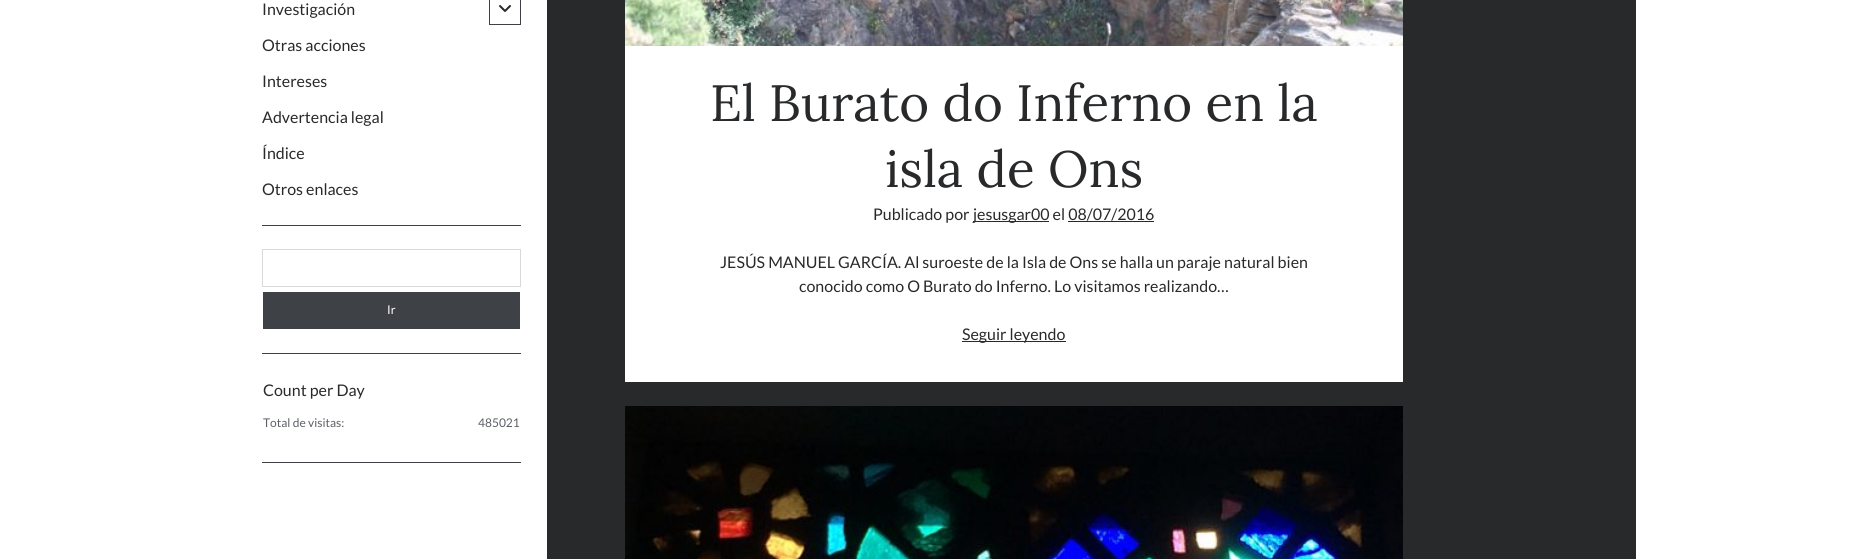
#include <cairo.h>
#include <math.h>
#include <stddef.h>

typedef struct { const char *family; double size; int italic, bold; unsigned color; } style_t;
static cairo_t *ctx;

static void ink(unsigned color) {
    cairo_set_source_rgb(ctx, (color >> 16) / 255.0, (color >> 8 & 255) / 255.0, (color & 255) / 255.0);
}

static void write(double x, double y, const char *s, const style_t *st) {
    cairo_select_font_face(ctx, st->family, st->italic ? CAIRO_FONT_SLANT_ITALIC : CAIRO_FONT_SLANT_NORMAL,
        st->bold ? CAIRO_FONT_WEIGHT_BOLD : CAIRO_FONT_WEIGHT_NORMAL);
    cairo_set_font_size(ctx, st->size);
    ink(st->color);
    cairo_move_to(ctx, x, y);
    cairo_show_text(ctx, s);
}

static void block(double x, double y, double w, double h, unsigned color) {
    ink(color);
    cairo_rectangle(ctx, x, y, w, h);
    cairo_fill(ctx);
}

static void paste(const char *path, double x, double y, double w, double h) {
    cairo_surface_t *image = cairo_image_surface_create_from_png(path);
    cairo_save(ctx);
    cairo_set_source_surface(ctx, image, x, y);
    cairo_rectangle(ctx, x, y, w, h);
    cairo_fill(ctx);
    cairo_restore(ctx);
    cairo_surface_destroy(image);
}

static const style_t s1 = {"Lato", 16, 0, 0, 0x27292b};
static const style_t s2 = {"Lato", 12, 0, 0, 0xffffff};
static const style_t s3 = {"Lato", 12, 0, 0, 0x5c6066};
static const style_t s4 = {"Lora", 51, 0, 0, 0x27292b};

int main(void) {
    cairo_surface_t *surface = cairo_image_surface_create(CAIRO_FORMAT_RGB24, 1872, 559);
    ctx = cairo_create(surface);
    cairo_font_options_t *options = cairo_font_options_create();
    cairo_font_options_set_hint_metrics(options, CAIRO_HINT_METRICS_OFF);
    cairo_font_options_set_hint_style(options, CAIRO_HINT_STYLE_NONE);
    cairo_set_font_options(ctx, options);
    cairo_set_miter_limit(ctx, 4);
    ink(0xffffff);
    cairo_paint(ctx);
    write(262, 15, "Investigación", &s1);
    cairo_rectangle(ctx, 489.5, -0.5, 31, 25);
    ink(0x3e4145);
    cairo_set_line_width(ctx, 1);
    cairo_stroke(ctx);
    paste("pic1.png", 499, 5, 12, 7);
    write(262, 51, "Otras acciones", &s1);
    write(262, 87, "Intereses", &s1);
    write(262, 123, "Advertencia legal", &s1);
    write(262, 159, "Índice", &s1);
    write(262, 195, "Otros enlaces", &s1);
    block(262, 225, 259, 1, 0x3e4145);
    cairo_rectangle(ctx, 262.5, 249.5, 258, 37);
    ink(0xd9d9d9);
    cairo_stroke(ctx);
    block(263, 292, 257, 37, 0x3e4145);
    write(387, 314, "Ir", &s2);
    block(262, 353, 259, 1, 0x3e4145);
    write(263, 396, "Count per Day", &s1);
    write(263, 427, "Total de visitas:", &s3);
    write(478, 427, "485021", &s3);
    block(262, 462, 259, 1, 0x3e4145);
    block(547, 0, 1089, 559, 0x27292b);
    paste("pic2.png", 625, 0, 778, 46);
    block(625, 46, 778, 336, 0xffffff);
    write(710, 121, "El Burato do Inferno en la", &s4);
    write(885, 187, "isla de Ons", &s4);
    write(873, 220, "Publicado por", &s1);
    block(973, 221, 76, 1, 0x27292b);
    write(973, 220, "jesusgar00 el 08/07/2016", &s1);
    block(1068, 221, 86, 1, 0x27292b);
    write(720, 268, "JESÚS MANUEL GARCÍA. Al suroeste de la Isla de Ons se halla un paraje natural bien", &s1);
    write(799, 292, "conocido como O Burato do Inferno. Lo visitamos realizando…", &s1);
    block(962, 341, 104, 1, 0x27292b);
    write(962, 340, "Seguir leyendo", &s1);
    paste("pic3.png", 625, 406, 778, 153);
    cairo_surface_write_to_png(surface, "screenshot.png");
    cairo_font_options_destroy(options);
    cairo_destroy(ctx);
    cairo_surface_destroy(surface);
    return 0;
}
